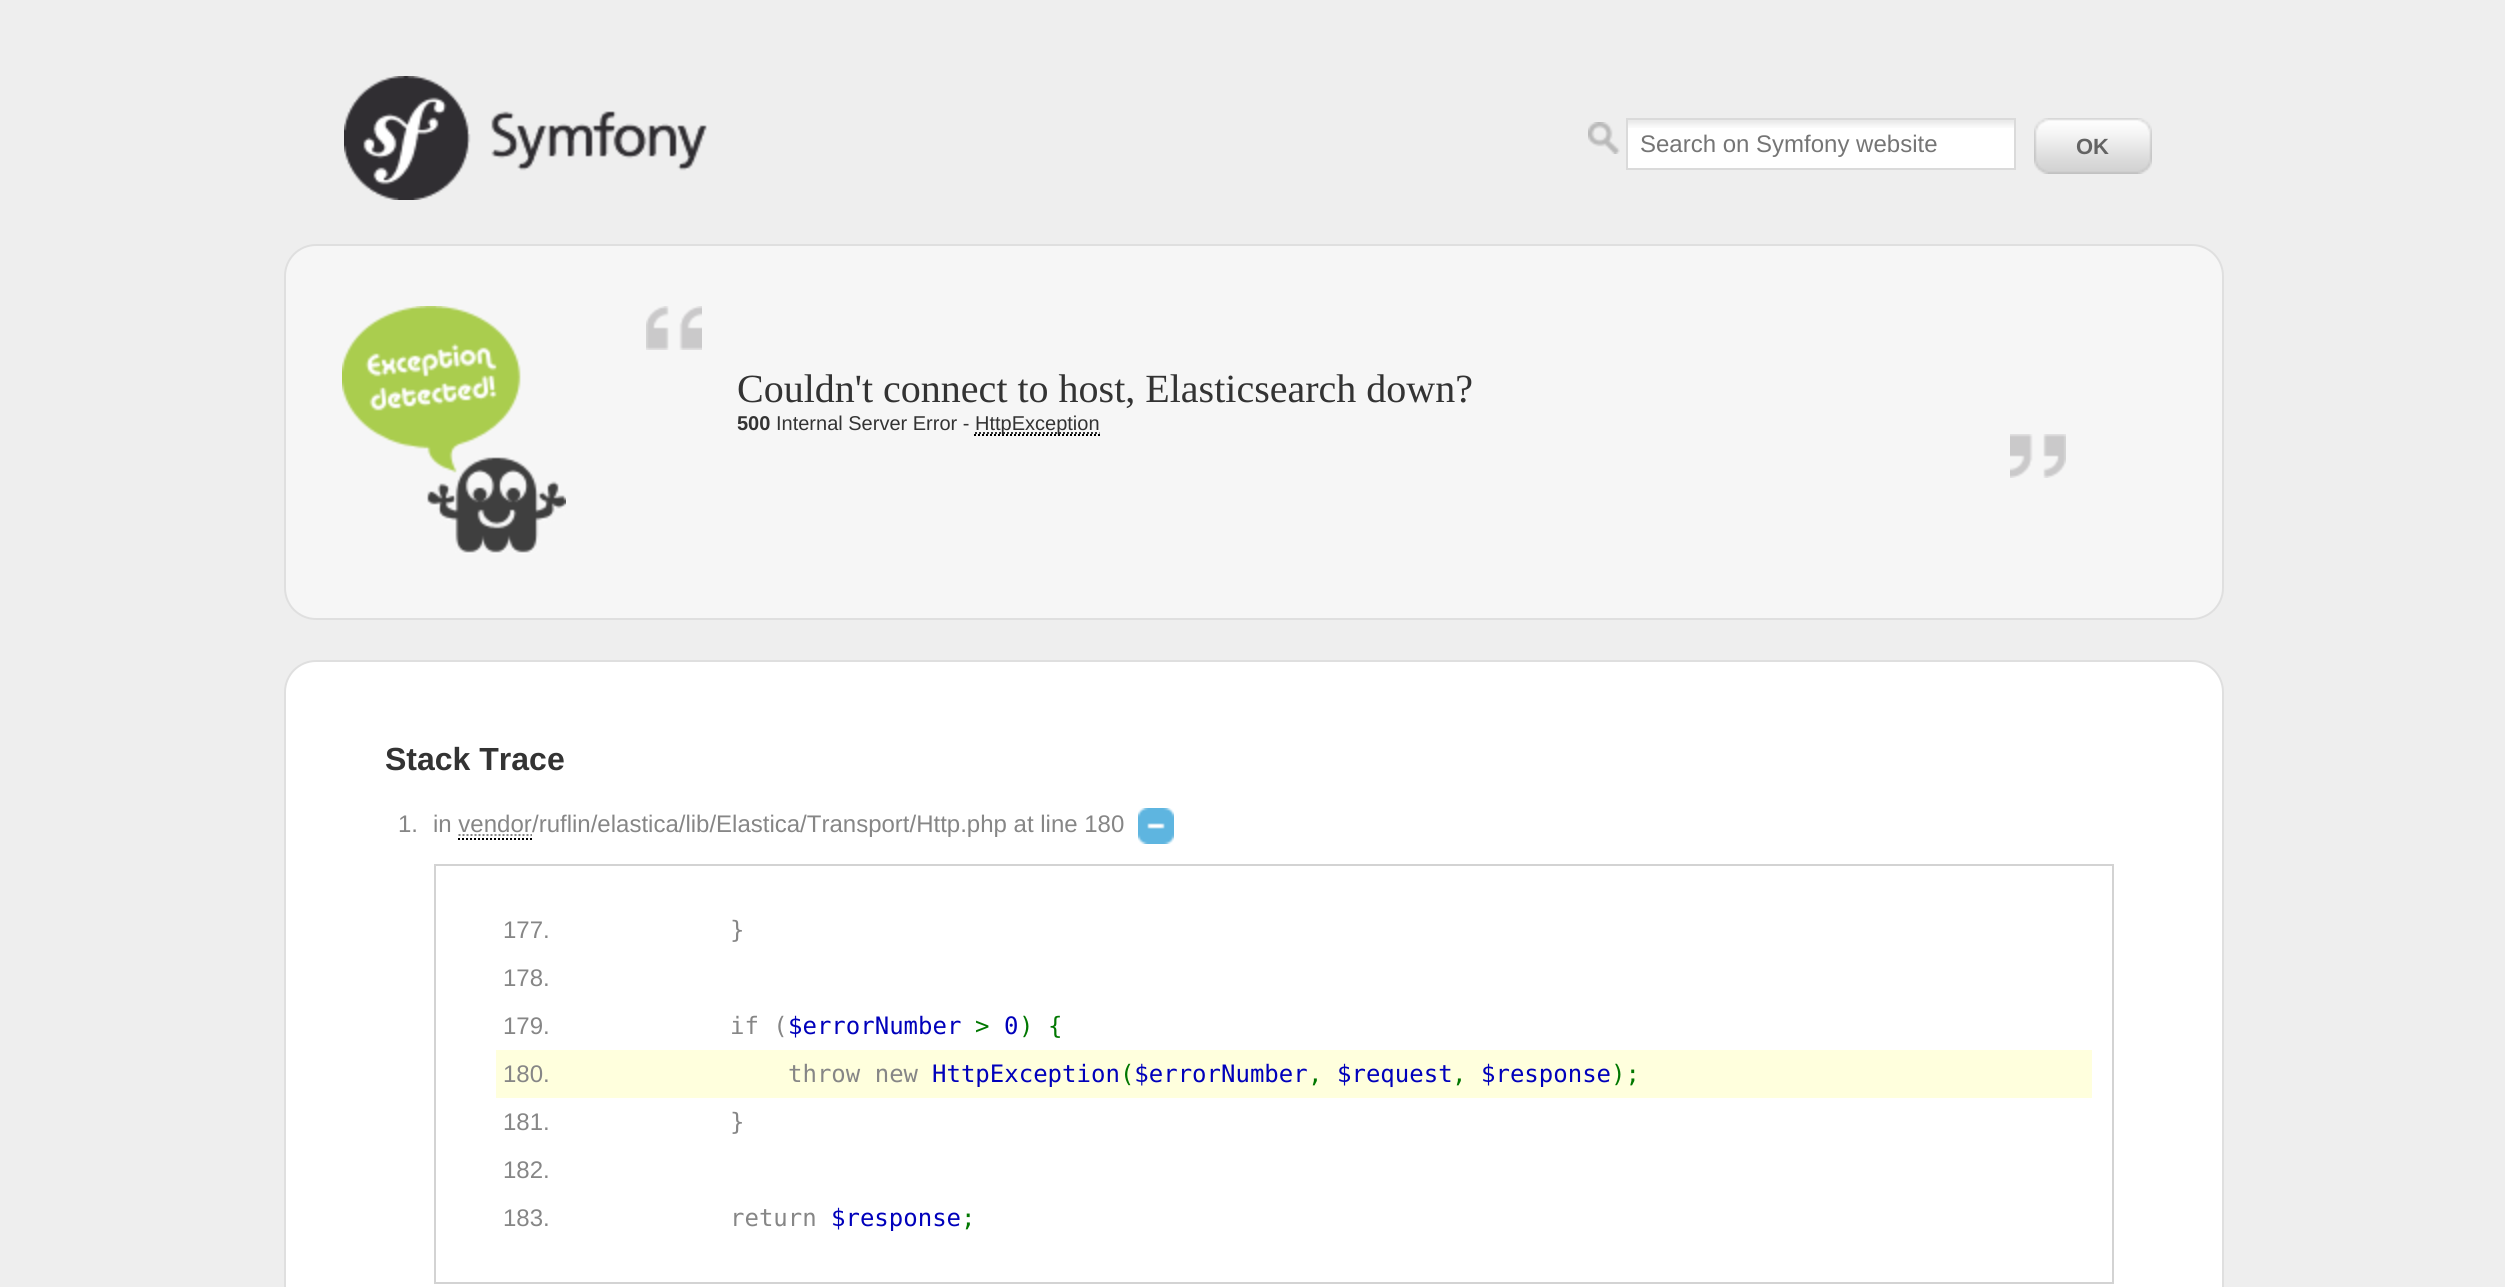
#include <cairo.h>
#include <math.h>
#include <stddef.h>

typedef struct { const char *family; double size; int italic, bold; unsigned color; } style_t;
static cairo_t *ctx;

static void ink(unsigned color) {
    cairo_set_source_rgb(ctx, (color >> 16) / 255.0, (color >> 8 & 255) / 255.0, (color & 255) / 255.0);
}

static void write(double x, double y, const char *s, const style_t *st) {
    cairo_select_font_face(ctx, st->family, st->italic ? CAIRO_FONT_SLANT_ITALIC : CAIRO_FONT_SLANT_NORMAL,
        st->bold ? CAIRO_FONT_WEIGHT_BOLD : CAIRO_FONT_WEIGHT_NORMAL);
    cairo_set_font_size(ctx, st->size);
    ink(st->color);
    cairo_move_to(ctx, x, y);
    cairo_show_text(ctx, s);
}

static void block(double x, double y, double w, double h, unsigned color) {
    ink(color);
    cairo_rectangle(ctx, x, y, w, h);
    cairo_fill(ctx);
}

static void round_path(double x, double y, double w, double h, double r) {
    cairo_new_sub_path(ctx);
    cairo_arc(ctx, x + w - r, y + h - r, r, 0, M_PI / 2);
    cairo_arc(ctx, x + r, y + h - r, r, M_PI / 2, M_PI);
    cairo_arc(ctx, x + r, y + r, r, M_PI, 1.5 * M_PI);
    cairo_arc(ctx, x + w - r, y + r, r, 1.5 * M_PI, 2 * M_PI);
    cairo_close_path(ctx);
}

static void paste(const char *path, double x, double y, double w, double h) {
    cairo_surface_t *image = cairo_image_surface_create_from_png(path);
    cairo_save(ctx);
    cairo_set_source_surface(ctx, image, x, y);
    cairo_rectangle(ctx, x, y, w, h);
    cairo_fill(ctx);
    cairo_restore(ctx);
    cairo_surface_destroy(image);
}

static const style_t s1 = {"Liberation Sans", 24, 0, 0, 0x757575};
static const style_t s2 = {"Liberation Sans", 22, 0, 1, 0x636363};
static const style_t s3 = {"Liberation Serif", 40, 0, 0, 0x333333};
static const style_t s4 = {"Liberation Sans", 20, 0, 1, 0x333333};
static const style_t s5 = {"Liberation Sans", 20, 0, 0, 0x333333};
static const style_t s6 = {"Liberation Sans", 32, 0, 1, 0x333333};
static const style_t s7 = {"Liberation Sans", 24, 0, 0, 0x868686};
static const style_t s8 = {"DejaVu Sans Mono", 24, 0, 0, 0x868686};
static const style_t s9 = {"DejaVu Sans Mono", 24, 0, 0, 0x0000bb};
static const style_t s10 = {"DejaVu Sans Mono", 24, 0, 0, 0x007700};

int main(void) {
    cairo_surface_t *surface = cairo_image_surface_create(CAIRO_FORMAT_RGB24, 2505, 1287);
    ctx = cairo_create(surface);
    cairo_font_options_t *options = cairo_font_options_create();
    cairo_font_options_set_hint_metrics(options, CAIRO_HINT_METRICS_OFF);
    cairo_font_options_set_hint_style(options, CAIRO_HINT_STYLE_NONE);
    cairo_set_font_options(ctx, options);
    cairo_set_miter_limit(ctx, 4);
    ink(0xeeeeee);
    cairo_paint(ctx);
    paste("pic1.png", 344, 76, 363, 124);
    paste("pic2.png", 1588, 122, 32, 32);
    block(1628, 128, 386, 40, 0xffffff);
    paste("pic3.png", 1628, 120, 386, 8);
    cairo_rectangle(ctx, 1627, 119, 388, 50);
    ink(0xdadada);
    cairo_stroke(ctx);
    write(1640, 152, "Search on Symfony website", &s1);
    paste("pic4.png", 2034, 118, 14, 56);
    paste("pic5.png", 2138, 118, 14, 56);
    paste("pic6.png", 2048, 118, 90, 56);
    write(2076, 154, "OK", &s2);
    ink(0xf6f6f6);
    round_path(285, 245, 1938, 374, 31);
    cairo_fill_preserve(ctx);
    ink(0xdfdfdf);
    cairo_stroke(ctx);
    paste("pic7.png", 342, 306, 224, 248);
    paste("pic8.png", 646, 306, 56, 44);
    write(737, 402, "Couldn't connect to host, Elasticsearch down?", &s3);
    write(737, 430, "500", &s4);
    write(776, 430, "Internal Server Error -", &s5);
    cairo_new_path(ctx);
    cairo_move_to(ctx, 974, 435);
    cairo_line_to(ctx, 1100, 435);
    ink(0x000000);
    cairo_set_dash(ctx, (double[]){2, 2}, 2, 0);
    cairo_stroke(ctx);
    cairo_new_path(ctx);
    cairo_move_to(ctx, 975, 433);
    cairo_line_to(ctx, 1099.5, 433);
    ink(0x313131);
    cairo_stroke(ctx);
    write(975, 430, "HttpException", &s5);
    paste("pic9.png", 2010, 434, 56, 44);
    ink(0xffffff);
    round_path(285, 661, 1938, 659, 31);
    cairo_fill_preserve(ctx);
    ink(0xdfdfdf);
    cairo_set_dash(ctx, NULL, 0, 0);
    cairo_stroke(ctx);
    write(385, 770, "Stack Trace", &s6);
    write(398, 832, "1.", &s7);
    write(433, 832, "in vendor", &s7);
    cairo_new_path(ctx);
    cairo_move_to(ctx, 458.5, 835);
    cairo_line_to(ctx, 532, 835);
    cairo_set_dash(ctx, (double[]){2, 2}, 2, 0);
    cairo_stroke(ctx);
    write(532, 832, "/ruflin/elastica/lib/Elastica/Transport/Http.php at line 180", &s7);
    paste("pic10.png", 1138, 808, 36, 36);
    cairo_new_path(ctx);
    cairo_move_to(ctx, 458, 839);
    cairo_line_to(ctx, 532, 839);
    ink(0x000000);
    cairo_stroke(ctx);
    cairo_rectangle(ctx, 435, 865, 1678, 418);
    ink(0xd3d3d3);
    cairo_set_dash(ctx, NULL, 0, 0);
    cairo_stroke(ctx);
    write(503, 938, "177.", &s7);
    write(730, 938, "}", &s8);
    write(503, 986, "178.", &s7);
    write(503, 1034, "179.", &s7);
    write(730, 1034, "if (", &s8);
    write(788, 1034, "$errorNumber", &s9);
    write(975, 1034, ">", &s10);
    write(1004, 1034, "0", &s9);
    write(1019, 1034, ") {", &s10);
    block(496, 1050, 1596, 48, 0xffffdd);
    write(788, 1082, "throw new", &s8);
    write(932, 1082, "HttpException $errorNumber", &s9);
    write(503, 1082, "180.", &s7);
    write(1120, 1082, "(", &s10);
    write(1308, 1082, ",", &s10);
    write(1337, 1082, "$request", &s9);
    write(1452, 1082, ",", &s10);
    write(1481, 1082, "$response", &s9);
    write(1611, 1082, ");", &s10);
    write(503, 1130, "181.", &s7);
    write(730, 1130, "}", &s8);
    write(503, 1178, "182.", &s7);
    write(503, 1226, "183.", &s7);
    write(730, 1226, "return", &s8);
    write(831, 1226, "$response", &s9);
    write(961, 1226, ";", &s10);
    cairo_surface_write_to_png(surface, "screenshot.png");
    cairo_font_options_destroy(options);
    cairo_destroy(ctx);
    cairo_surface_destroy(surface);
    return 0;
}
